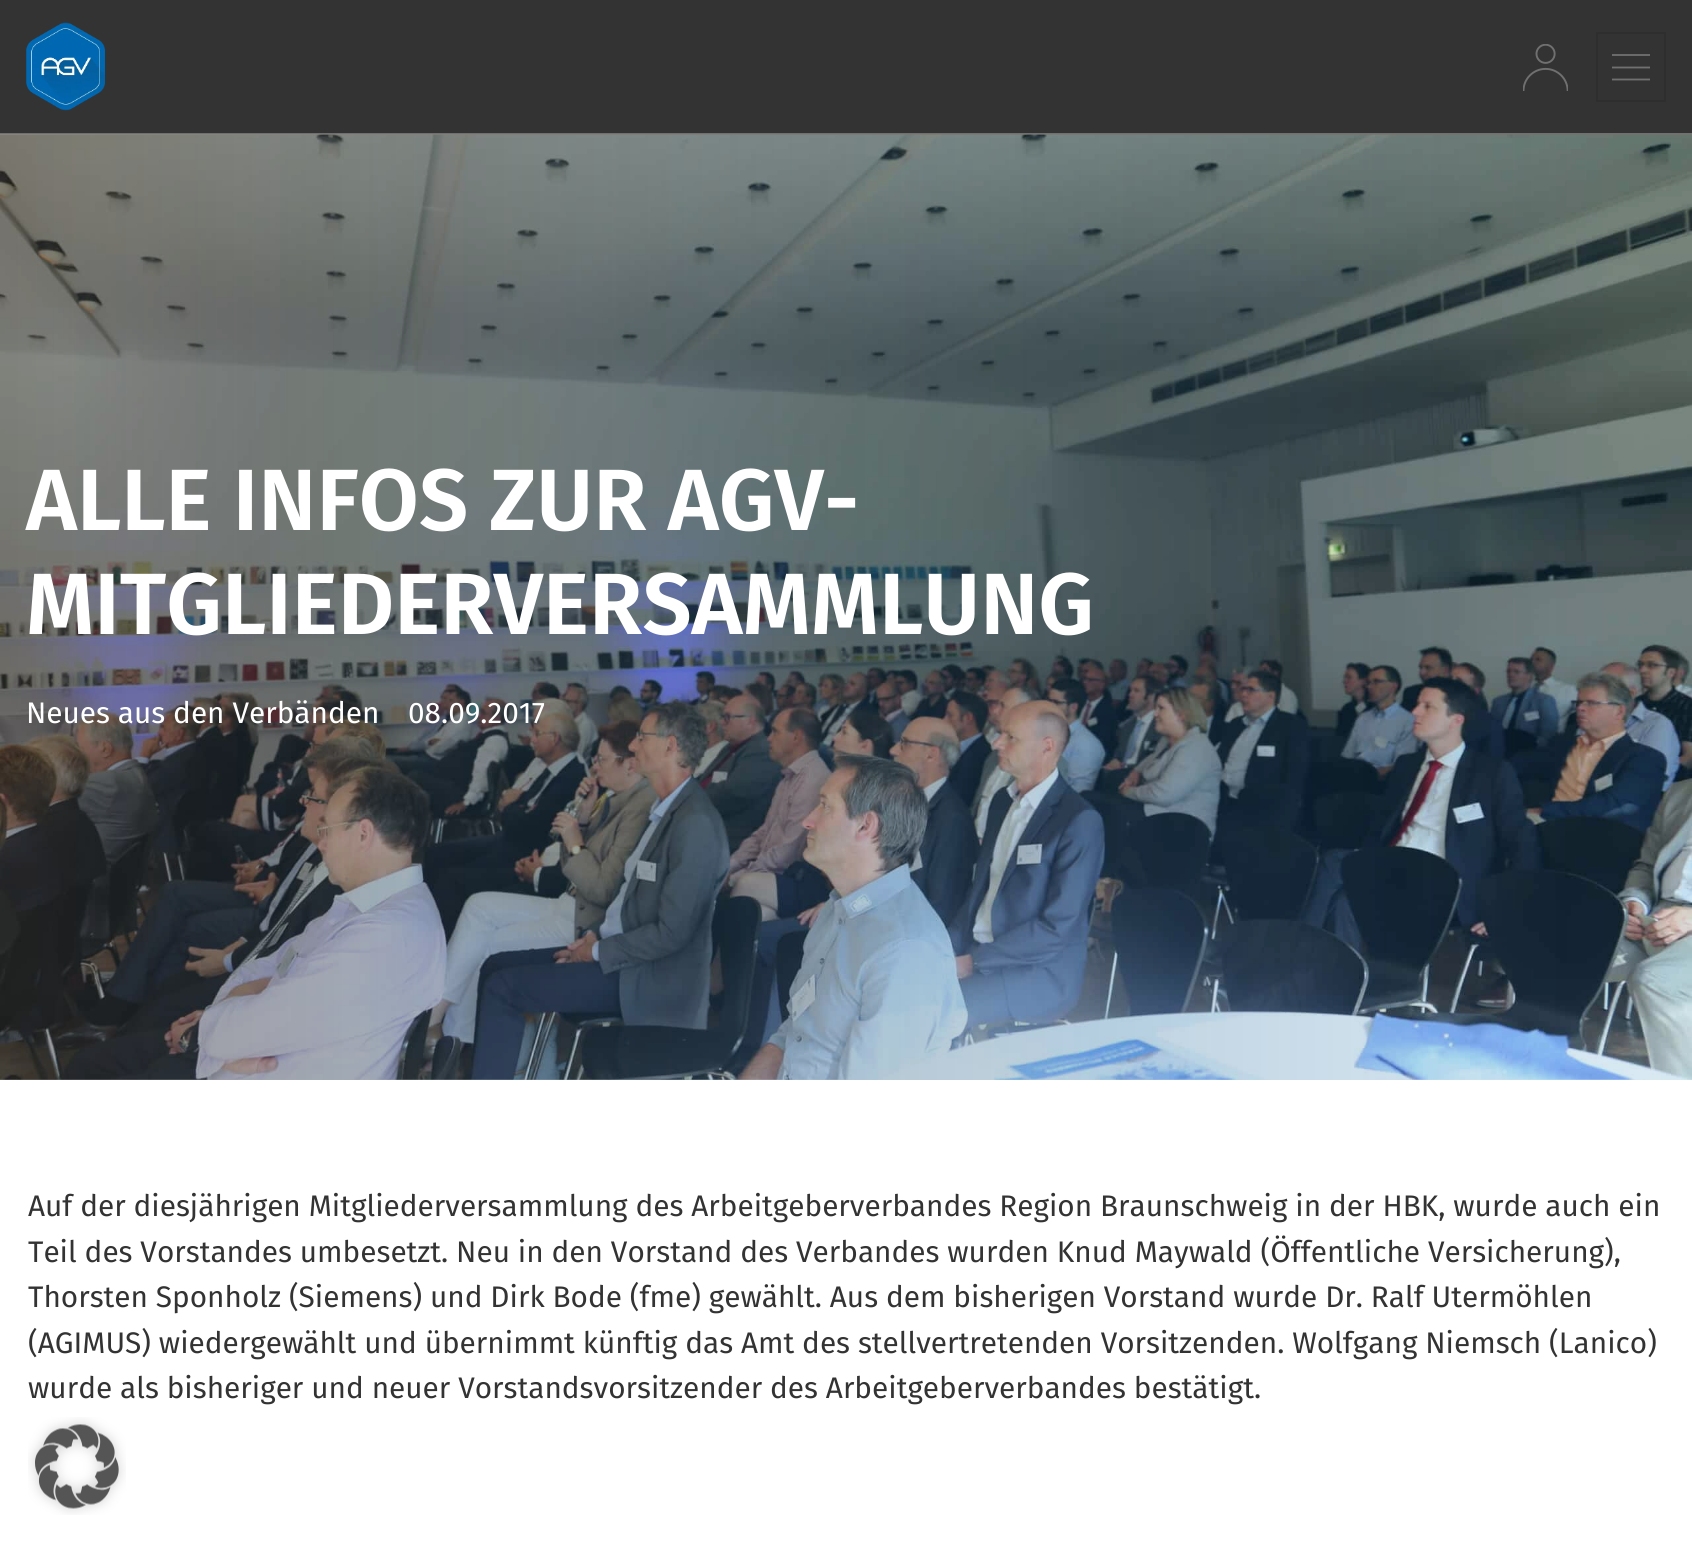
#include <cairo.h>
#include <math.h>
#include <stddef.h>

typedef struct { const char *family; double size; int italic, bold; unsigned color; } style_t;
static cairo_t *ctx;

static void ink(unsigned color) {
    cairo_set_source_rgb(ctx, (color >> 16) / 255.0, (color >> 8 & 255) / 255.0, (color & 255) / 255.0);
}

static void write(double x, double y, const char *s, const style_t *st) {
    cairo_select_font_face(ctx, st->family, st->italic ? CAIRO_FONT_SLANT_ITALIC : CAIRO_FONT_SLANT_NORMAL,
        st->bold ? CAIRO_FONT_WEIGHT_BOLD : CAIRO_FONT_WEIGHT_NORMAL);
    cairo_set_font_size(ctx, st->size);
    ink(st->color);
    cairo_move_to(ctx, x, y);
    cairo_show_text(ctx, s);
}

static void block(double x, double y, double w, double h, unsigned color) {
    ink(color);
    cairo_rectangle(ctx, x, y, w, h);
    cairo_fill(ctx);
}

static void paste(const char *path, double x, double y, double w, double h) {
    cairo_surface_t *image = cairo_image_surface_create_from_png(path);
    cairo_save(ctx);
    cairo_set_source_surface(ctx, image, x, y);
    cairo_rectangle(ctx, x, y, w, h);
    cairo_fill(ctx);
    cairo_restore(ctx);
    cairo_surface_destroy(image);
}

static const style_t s1 = {"Fira Sans SemiBold", 87, 0, 0, 0xffffff};
static const style_t s2 = {"Fira Sans", 29.75, 0, 0, 0xffffff};
static const style_t s3 = {"Fira Sans", 29.75, 0, 0, 0x333333};

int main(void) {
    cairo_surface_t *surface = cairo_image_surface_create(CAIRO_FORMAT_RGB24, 1692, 1543);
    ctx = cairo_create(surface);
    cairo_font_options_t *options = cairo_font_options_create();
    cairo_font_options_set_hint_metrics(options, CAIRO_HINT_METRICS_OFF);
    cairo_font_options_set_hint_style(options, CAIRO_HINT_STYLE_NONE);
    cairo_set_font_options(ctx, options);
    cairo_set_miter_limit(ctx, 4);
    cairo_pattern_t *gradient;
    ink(0xffffff);
    cairo_paint(ctx);
    block(0, 0, 1692, 133, 0x333333);
    block(0, 133, 1692, 2, 0x707070);
    paste("pic1.png", 26, 22, 79, 89);
    paste("pic2.png", 1523, 44, 45, 47);
    cairo_rectangle(ctx, 1597, 33, 68, 68);
    ink(0x2e2e2e);
    cairo_stroke(ctx);
    block(1612, 54, 38, 2, 0x6a6a6a);
    cairo_new_path(ctx);
    cairo_move_to(ctx, 1612, 79.5);
    cairo_line_to(ctx, 1650, 79.5);
    cairo_move_to(ctx, 1612, 67.5);
    cairo_line_to(ctx, 1650, 67.5);
    ink(0x707070);
    cairo_set_line_width(ctx, 1.8);
    cairo_stroke(ctx);
    paste("pic3.png", 0, 134, 1692, 946);
    gradient = cairo_pattern_create_linear(0, 607, 1692, 607);
    cairo_pattern_add_color_stop_rgba(gradient, 0, 0.2, 0.2, 0.2, 0.5);
    cairo_pattern_add_color_stop_rgba(gradient, 0.95, 0, 0.408, 0.69, 0.15);
    cairo_set_source(ctx, gradient);
    cairo_pattern_destroy(gradient);
    cairo_rectangle(ctx, 0, 135, 1692, 945);
    cairo_fill(ctx);
    write(26, 530, "ALLE INFOS ZUR AGV-", &s1);
    write(26, 634, "MITGLIEDERVERSAMMLUNG", &s1);
    write(26, 723, "Neues aus den Verbänden", &s2);
    write(408, 723, "08.09.2017", &s2);
    write(28, 1216, "Auf der diesjährigen Mitgliederversammlung des Arbeitgeberverbandes Region Braunschweig in der HBK, wurde auch ein", &s3);
    write(28, 1262, "Teil des Vorstandes umbesetzt. Neu in den Vorstand des Verbandes wurden Knud Maywald (Öffentliche Versicherung),", &s3);
    write(28, 1307, "Thorsten Sponholz (Siemens) und Dirk Bode (fme) gewählt. Aus dem bisherigen Vorstand wurde Dr. Ralf Utermöhlen", &s3);
    write(28, 1353, "(AGIMUS) wiedergewählt und übernimmt künftig das Amt des stellvertretenden Vorsitzenden. Wolfgang Niemsch (Lanico)", &s3);
    write(28, 1398, "wurde als bisheriger und neuer Vorstandsvorsitzender des Arbeitgeberverbandes bestätigt.", &s3);
    paste("pic4.png", 28, 1417, 98, 98);
    cairo_surface_write_to_png(surface, "screenshot.png");
    cairo_font_options_destroy(options);
    cairo_destroy(ctx);
    cairo_surface_destroy(surface);
    return 0;
}
